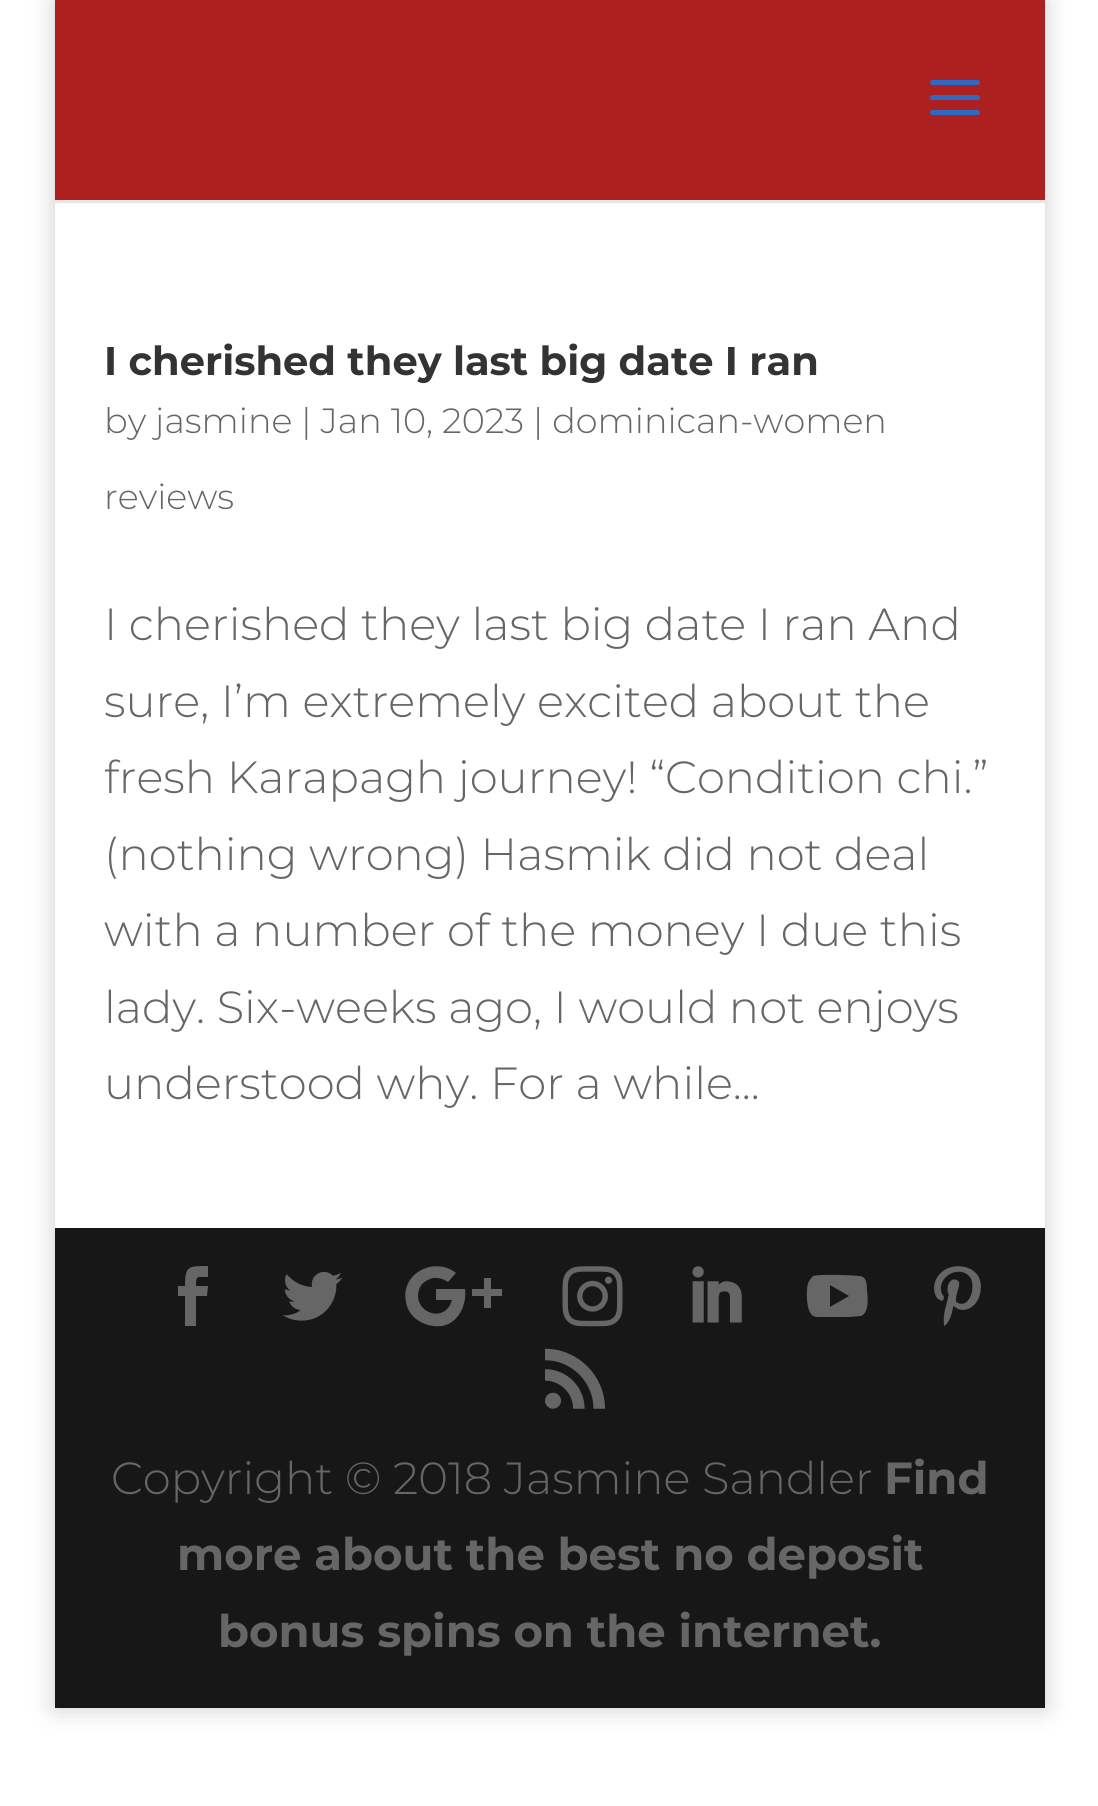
#include <cairo.h>
#include <math.h>
#include <stddef.h>

typedef struct { const char *family; double size; int italic, bold; unsigned color; } style_t;
static cairo_t *ctx;

static void ink(unsigned color) {
    cairo_set_source_rgb(ctx, (color >> 16) / 255.0, (color >> 8 & 255) / 255.0, (color & 255) / 255.0);
}

static void write(double x, double y, const char *s, const style_t *st) {
    cairo_select_font_face(ctx, st->family, st->italic ? CAIRO_FONT_SLANT_ITALIC : CAIRO_FONT_SLANT_NORMAL,
        st->bold ? CAIRO_FONT_WEIGHT_BOLD : CAIRO_FONT_WEIGHT_NORMAL);
    cairo_set_font_size(ctx, st->size);
    ink(st->color);
    cairo_move_to(ctx, x, y);
    cairo_show_text(ctx, s);
}

static void block(double x, double y, double w, double h, unsigned color) {
    ink(color);
    cairo_rectangle(ctx, x, y, w, h);
    cairo_fill(ctx);
}

static void round_path(double x, double y, double w, double h, double r) {
    cairo_new_sub_path(ctx);
    cairo_arc(ctx, x + w - r, y + h - r, r, 0, M_PI / 2);
    cairo_arc(ctx, x + r, y + h - r, r, M_PI / 2, M_PI);
    cairo_arc(ctx, x + r, y + r, r, M_PI, 1.5 * M_PI);
    cairo_arc(ctx, x + w - r, y + r, r, 1.5 * M_PI, 2 * M_PI);
    cairo_close_path(ctx);
}

static void blur_box(double x, double y, double w, double h, double r, double blur, double alpha) {
    cairo_push_group_with_content(ctx, CAIRO_CONTENT_ALPHA);
    cairo_set_operator(ctx, CAIRO_OPERATOR_SOURCE);
    for (int i = 15; i >= -15 && fmin(w, h) + blur * i / 3 > 0; i -= 2) {
        double e = blur * i / 6;
        cairo_set_source_rgba(ctx, 0, 0, 0, alpha * erfc((i - 1) / 8.5) / 2);
        round_path(x - e, y - e, w + 2 * e, h + 2 * e, fmax(0, fmin(r + e + blur * .6, fmin(w, h) / 2 + e)));
        cairo_fill(ctx);
    }
    cairo_pattern_t *soft = cairo_pop_group(ctx);
    cairo_mask(ctx, soft);
    cairo_pattern_destroy(soft);
}

static void paste(const char *path, double x, double y, double w, double h) {
    cairo_surface_t *image = cairo_image_surface_create_from_png(path);
    cairo_save(ctx);
    cairo_set_source_surface(ctx, image, x, y);
    cairo_rectangle(ctx, x, y, w, h);
    cairo_fill(ctx);
    cairo_restore(ctx);
    cairo_surface_destroy(image);
}

static const style_t s1 = {"Montserrat", 40, 0, 1, 0x333333};
static const style_t s2 = {"Montserrat Light", 35, 0, 0, 0x666666};
static const style_t s3 = {"Montserrat Light", 45, 0, 0, 0x666666};
static const style_t s4 = {"Montserrat", 45, 0, 1, 0x666666};

int main(void) {
    cairo_surface_t *surface = cairo_image_surface_create(CAIRO_FORMAT_RGB24, 1098, 1806);
    ctx = cairo_create(surface);
    cairo_font_options_t *options = cairo_font_options_create();
    cairo_font_options_set_hint_metrics(options, CAIRO_HINT_METRICS_OFF);
    cairo_font_options_set_hint_style(options, CAIRO_HINT_STYLE_NONE);
    cairo_set_font_options(ctx, options);
    cairo_set_miter_limit(ctx, 4);
    ink(0xffffff);
    cairo_paint(ctx);
    cairo_save(ctx);
    cairo_set_fill_rule(ctx, CAIRO_FILL_RULE_EVEN_ODD);
    cairo_new_path(ctx);
    cairo_move_to(ctx, 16, 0);
    cairo_line_to(ctx, 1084, 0);
    cairo_line_to(ctx, 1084, 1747);
    cairo_line_to(ctx, 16, 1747);
    cairo_close_path(ctx);
    cairo_move_to(ctx, 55, 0);
    cairo_line_to(ctx, 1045, 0);
    cairo_line_to(ctx, 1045, 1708);
    cairo_line_to(ctx, 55, 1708);
    cairo_close_path(ctx);
    cairo_clip(ctx);
    ink(0x000000);
    blur_box(55, 0, 990, 1708, 0, 12.5, 0.2);
    cairo_restore(ctx);
    block(55, 200, 990, 3, 0xe6e6e6);
    block(55, 0, 990, 200, 0xac2020);
    paste("pic1.png", 930, 80, 50, 35);
    write(104, 375, "I cherished they last big date I ran", &s1);
    write(104, 433, "by jasmine | Jan 10, 2023 | dominican-women", &s2);
    write(104, 509, "reviews", &s2);
    write(104, 640, "I cherished they last big date I ran And", &s3);
    write(104, 717, "sure, I’m extremely excited about the", &s3);
    write(104, 793, "fresh Karapagh journey! “Condition chi.”", &s3);
    write(104, 870, "(nothing wrong) Hasmik did not deal", &s3);
    write(104, 946, "with a number of the money I due this", &s3);
    write(104, 1023, "lady. Six-weeks ago, I would not enjoys", &s3);
    write(104, 1099, "understood why. For a while...", &s3);
    block(55, 1228, 990, 480, 0x171717);
    ink(0x666666);
    cairo_new_path(ctx);
    cairo_move_to(ctx, 185, 1326);
    cairo_line_to(ctx, 196, 1326);
    cairo_line_to(ctx, 196, 1296);
    cairo_line_to(ctx, 207, 1296);
    cairo_line_to(ctx, 208, 1286);
    cairo_line_to(ctx, 196, 1286);
    cairo_curve_to(ctx, 196, 1275, 197, 1277, 208, 1277);
    cairo_line_to(ctx, 208, 1266);
    cairo_curve_to(ctx, 188, 1266, 185, 1266, 185, 1286);
    cairo_line_to(ctx, 178, 1286);
    cairo_line_to(ctx, 178, 1296);
    cairo_line_to(ctx, 185, 1296);
    cairo_close_path(ctx);
    cairo_fill(ctx);
    paste("pic2.png", 282, 1271, 61, 50);
    cairo_new_path(ctx);
    cairo_move_to(ctx, 436, 1289);
    cairo_line_to(ctx, 436, 1300);
    cairo_line_to(ctx, 452, 1300);
    cairo_curve_to(ctx, 445, 1325, 412, 1312, 419, 1290);
    cairo_curve_to(ctx, 420, 1286, 423, 1282, 428, 1280);
    cairo_curve_to(ctx, 434, 1276, 442, 1278, 448, 1282);
    cairo_line_to(ctx, 456, 1273);
    cairo_curve_to(ctx, 435, 1256, 400, 1273, 406, 1302);
    cairo_curve_to(ctx, 407, 1309, 411, 1315, 416, 1319);
    cairo_curve_to(ctx, 424, 1325, 433, 1327, 442, 1326);
    cairo_curve_to(ctx, 459, 1323, 467, 1304, 465, 1289);
    cairo_close_path(ctx);
    cairo_move_to(ctx, 502, 1289);
    cairo_line_to(ctx, 491, 1289);
    cairo_line_to(ctx, 491, 1278);
    cairo_line_to(ctx, 484, 1278);
    cairo_line_to(ctx, 484, 1289);
    cairo_line_to(ctx, 472, 1289);
    cairo_line_to(ctx, 472, 1296);
    cairo_line_to(ctx, 484, 1296);
    cairo_line_to(ctx, 484, 1308);
    cairo_line_to(ctx, 491, 1308);
    cairo_line_to(ctx, 491, 1296);
    cairo_line_to(ctx, 502, 1296);
    cairo_close_path(ctx);
    cairo_fill(ctx);
    paste("pic3.png", 562, 1266, 61, 61);
    paste("pic4.png", 692, 1266, 50, 57);
    cairo_new_path(ctx);
    cairo_move_to(ctx, 859, 1276);
    cairo_curve_to(ctx, 852, 1275, 819, 1274, 813, 1276);
    cairo_curve_to(ctx, 811, 1278, 809, 1281, 808, 1283);
    cairo_curve_to(ctx, 806, 1290, 806, 1310, 812, 1315);
    cairo_curve_to(ctx, 814, 1317, 817, 1317, 820, 1317);
    cairo_line_to(ctx, 849, 1317);
    cairo_line_to(ctx, 861, 1316);
    cairo_curve_to(ctx, 869, 1313, 868, 1298, 867, 1291);
    cairo_curve_to(ctx, 867, 1285, 867, 1276, 859, 1276);
    cairo_close_path(ctx);
    cairo_move_to(ctx, 830, 1307);
    cairo_line_to(ctx, 830, 1285);
    cairo_line_to(ctx, 849, 1296);
    cairo_close_path(ctx);
    cairo_fill(ctx);
    paste("pic5.png", 934, 1266, 47, 60);
    paste("pic6.png", 545, 1348, 60, 61);
    write(111, 1494, "Copyright © 2018 Jasmine Sandler", &s3);
    write(884, 1494, "Find", &s4);
    write(177, 1570, "more about the best no deposit", &s4);
    write(218, 1647, "bonus spins on the internet.", &s4);
    cairo_surface_write_to_png(surface, "screenshot.png");
    cairo_font_options_destroy(options);
    cairo_destroy(ctx);
    cairo_surface_destroy(surface);
    return 0;
}
